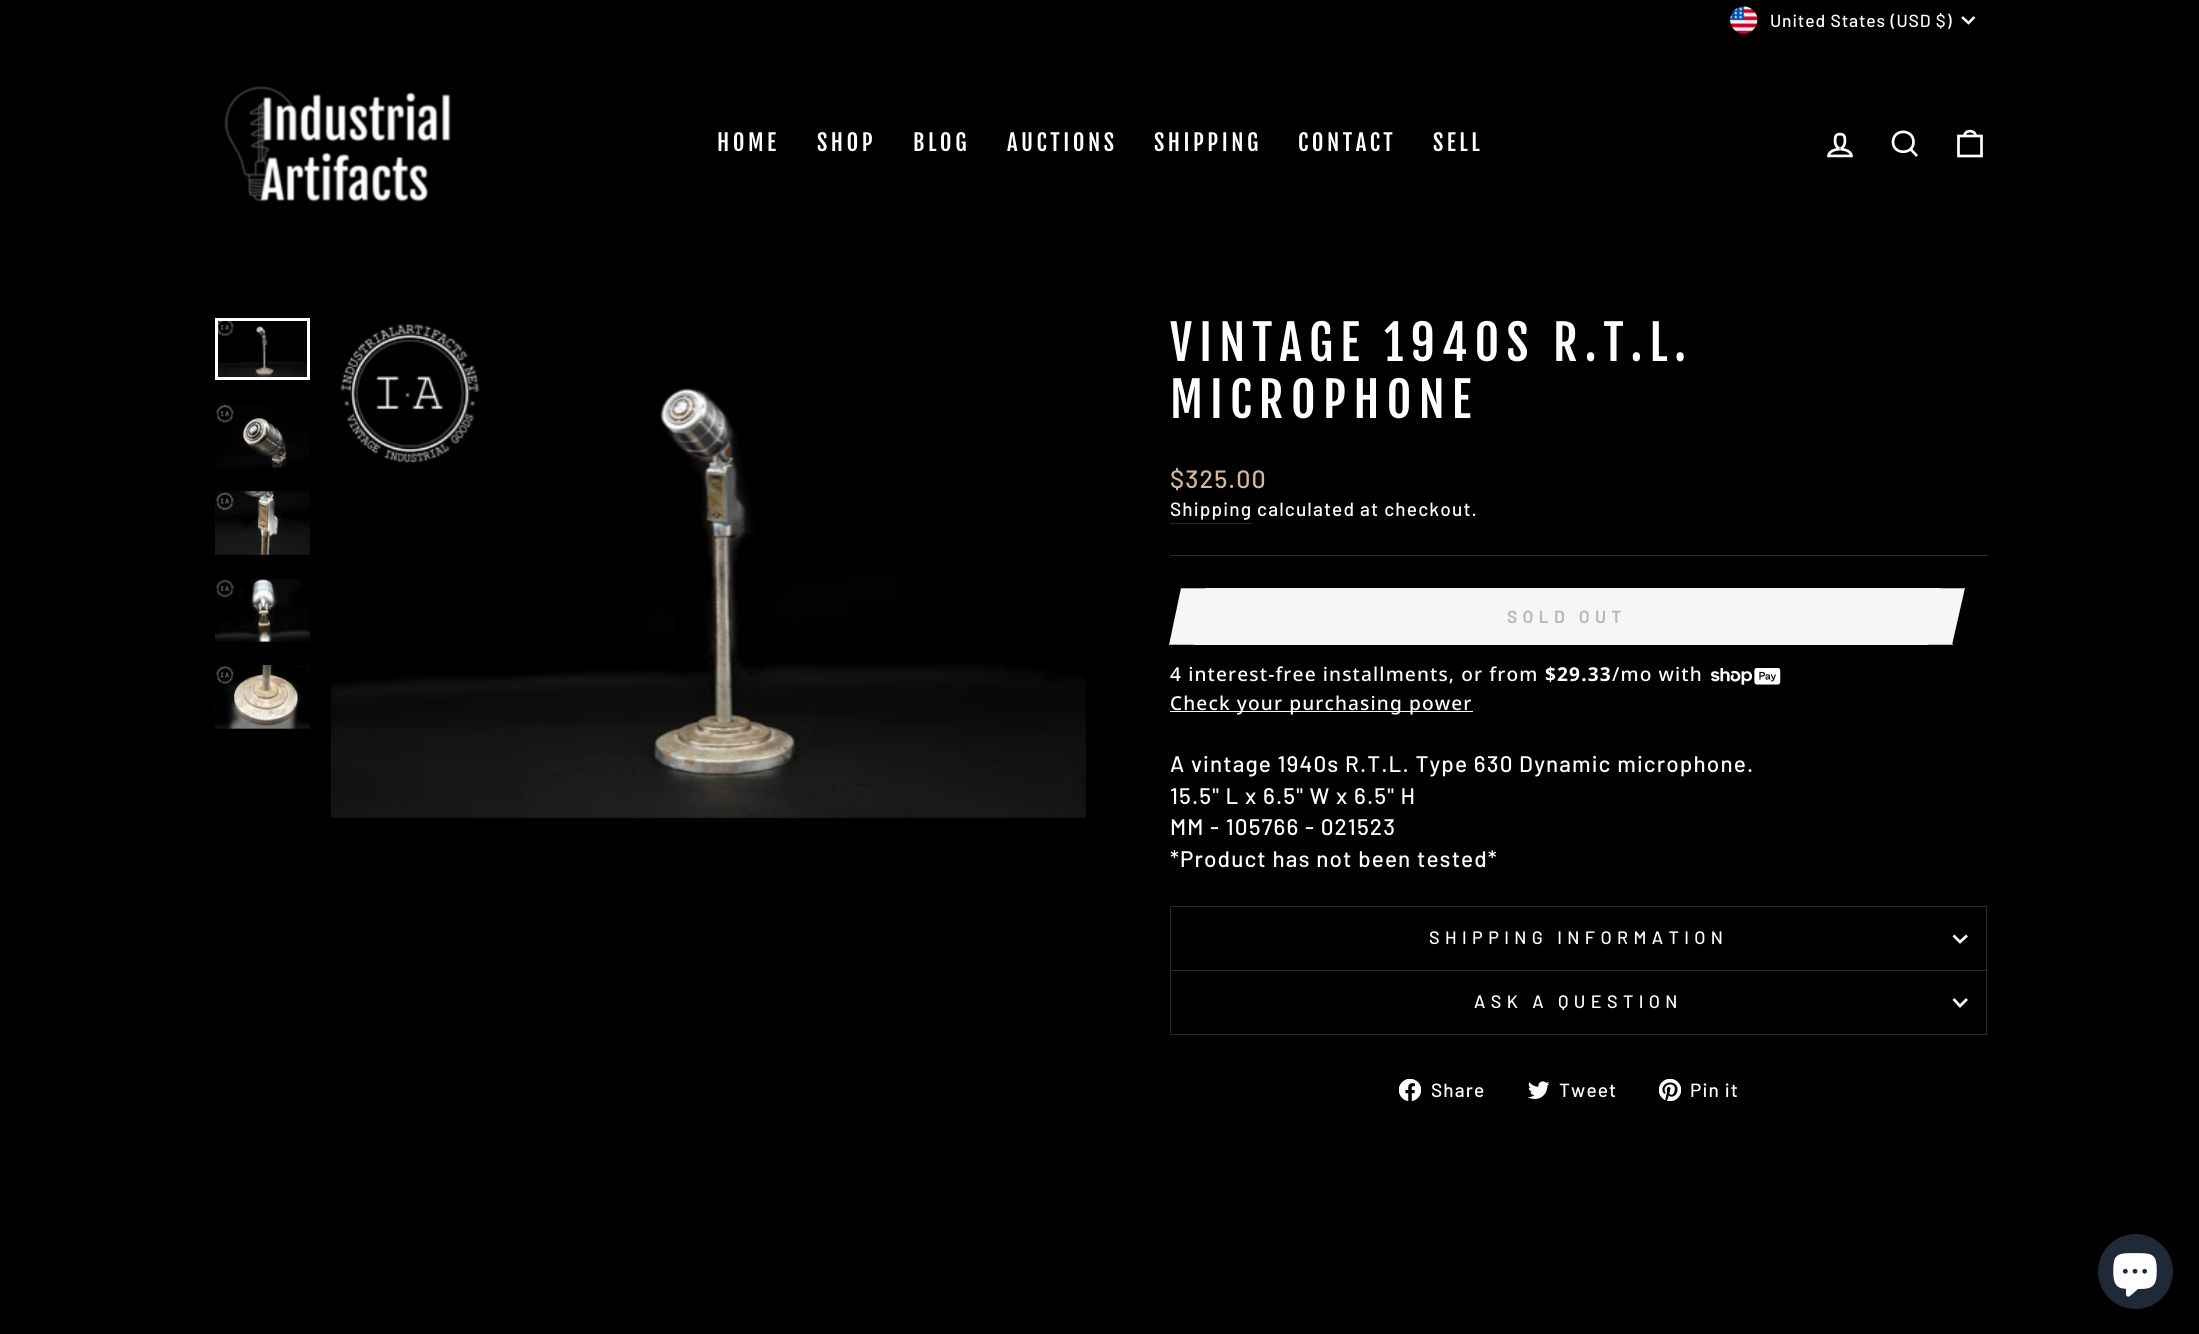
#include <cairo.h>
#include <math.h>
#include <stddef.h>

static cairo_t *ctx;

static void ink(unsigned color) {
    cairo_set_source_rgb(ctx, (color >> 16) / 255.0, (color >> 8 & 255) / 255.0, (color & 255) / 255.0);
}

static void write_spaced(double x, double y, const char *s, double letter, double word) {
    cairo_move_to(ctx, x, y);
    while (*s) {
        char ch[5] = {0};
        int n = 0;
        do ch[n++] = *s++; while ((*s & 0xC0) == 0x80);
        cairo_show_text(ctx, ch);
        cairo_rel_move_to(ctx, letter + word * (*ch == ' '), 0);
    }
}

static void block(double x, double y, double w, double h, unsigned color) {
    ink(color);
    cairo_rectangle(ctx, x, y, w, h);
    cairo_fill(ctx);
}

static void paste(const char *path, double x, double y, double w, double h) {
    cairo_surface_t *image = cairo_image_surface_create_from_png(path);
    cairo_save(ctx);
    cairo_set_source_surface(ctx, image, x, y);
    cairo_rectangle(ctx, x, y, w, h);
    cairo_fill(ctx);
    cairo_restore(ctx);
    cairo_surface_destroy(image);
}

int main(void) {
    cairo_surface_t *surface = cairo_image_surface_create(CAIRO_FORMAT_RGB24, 2199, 1334);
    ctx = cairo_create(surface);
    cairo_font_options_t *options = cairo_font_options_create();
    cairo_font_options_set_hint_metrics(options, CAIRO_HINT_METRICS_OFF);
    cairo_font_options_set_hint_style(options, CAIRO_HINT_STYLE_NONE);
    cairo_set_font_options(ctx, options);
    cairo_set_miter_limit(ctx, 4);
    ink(0x000000);
    cairo_paint(ctx);
    paste("pic1.png", 1730, 6, 28, 28);
    cairo_select_font_face(ctx, "Barlow Medium", CAIRO_FONT_SLANT_NORMAL, CAIRO_FONT_WEIGHT_NORMAL);
    cairo_set_font_size(ctx, 17.5);
    ink(0xffffff);
    write_spaced(1770, 27, "United States (USD $)", 0.9, 0);
    cairo_new_path(ctx);
    cairo_move_to(ctx, 1962, 17);
    cairo_line_to(ctx, 1968.5, 23);
    cairo_line_to(ctx, 1974.5, 17);
    cairo_set_line_width(ctx, 2.5);
    cairo_stroke(ctx);
    paste("pic2.png", 224, 86, 227, 116);
    cairo_select_font_face(ctx, "Fjalla One", CAIRO_FONT_SLANT_NORMAL, CAIRO_FONT_WEIGHT_NORMAL);
    cairo_set_font_size(ctx, 22.5);
    write_spaced(717, 151, "HOME", 3.5, 0);
    write_spaced(817, 151, "SHOP", 3.5, 0);
    write_spaced(913, 151, "BLOG", 3.5, 0);
    write_spaced(1007, 151, "AUCTIONS", 3.5, 0);
    write_spaced(1154, 151, "SHIPPING", 3.5, 0);
    write_spaced(1298, 151, "CONTACT", 3.5, 0);
    write_spaced(1433, 151, "SELL", 3.5, 0);
    paste("pic3.png", 1827, 132, 26, 26);
    cairo_new_path(ctx);
    cairo_move_to(ctx, 1913.5, 142);
    cairo_curve_to(ctx, 1913.5, 155, 1893, 155, 1893, 142);
    cairo_curve_to(ctx, 1893, 128.5, 1913.5, 128.5, 1913.5, 142);
    cairo_close_path(ctx);
    cairo_move_to(ctx, 1917, 156);
    cairo_line_to(ctx, 1910.5, 149);
    cairo_set_line_width(ctx, 2.7);
    cairo_stroke(ctx);
    cairo_new_path(ctx);
    cairo_move_to(ctx, 1958.5, 136);
    cairo_line_to(ctx, 1981.5, 136);
    cairo_line_to(ctx, 1981.5, 156);
    cairo_line_to(ctx, 1958.5, 156);
    cairo_close_path(ctx);
    cairo_move_to(ctx, 1964.5, 136);
    cairo_curve_to(ctx, 1964.5, 129.5, 1975.5, 129.5, 1975.5, 136);
    cairo_stroke(ctx);
    paste("pic4.png", 218, 321, 89, 56);
    cairo_rectangle(ctx, 216.5, 319.5, 92, 59);
    cairo_set_line_width(ctx, 3);
    cairo_stroke(ctx);
    paste("pic5.png", 215, 404, 95, 64);
    paste("pic6.png", 215, 491, 95, 64);
    paste("pic7.png", 215, 578, 95, 64);
    paste("pic8.png", 215, 665, 95, 64);
    paste("pic9.png", 331, 321, 755, 497);
    cairo_set_font_size(ctx, 47.75);
    write_spaced(1170, 361, "VINTAGE 1940S R.T.L.", 7.2, 0);
    write_spaced(1170, 418, "MICROPHONE", 7.2, 0);
    cairo_select_font_face(ctx, "Barlow Medium", CAIRO_FONT_SLANT_NORMAL, CAIRO_FONT_WEIGHT_NORMAL);
    cairo_set_font_size(ctx, 25);
    ink(0xd1ba98);
    write_spaced(1170, 488, "$325.00", 1.12, 0);
    block(1170, 523, 83, 1, 0x262626);
    cairo_set_font_size(ctx, 19.1);
    ink(0xffffff);
    write_spaced(1170, 516, "Shipping", 1.12, 0);
    write_spaced(1257, 516, "calculated at checkout.", 1.12, 0);
    block(1170, 555, 818, 1, 0x2b2a27);
    block(1194, 588, 746, 57, 0xf6f6f6);
    cairo_new_path(ctx);
    cairo_move_to(ctx, 1181, 588);
    cairo_line_to(ctx, 1206, 588);
    cairo_line_to(ctx, 1194, 645);
    cairo_line_to(ctx, 1169, 645);
    cairo_close_path(ctx);
    cairo_fill(ctx);
    block(1181, 588, 25, 1, 0xb6b6b6);
    block(1169, 644, 25, 1, 0xb6b6b6);
    cairo_select_font_face(ctx, "Barlow SemiBold", CAIRO_FONT_SLANT_NORMAL, CAIRO_FONT_WEIGHT_NORMAL);
    cairo_set_font_size(ctx, 17.5);
    write_spaced(1507, 623, "SOLD OUT", 5.25, 0);
    ink(0xf6f6f6);
    cairo_new_path(ctx);
    cairo_move_to(ctx, 1940, 588);
    cairo_line_to(ctx, 1965, 588);
    cairo_line_to(ctx, 1952, 645);
    cairo_line_to(ctx, 1927, 645);
    cairo_close_path(ctx);
    cairo_fill(ctx);
    block(1940, 588, 25, 1, 0xb6b6b6);
    block(1928, 644, 25, 1, 0xb6b6b6);
    cairo_select_font_face(ctx, "Noto Sans Medium", CAIRO_FONT_SLANT_NORMAL, CAIRO_FONT_WEIGHT_NORMAL);
    cairo_set_font_size(ctx, 19.1);
    ink(0xffffff);
    write_spaced(1170, 681, "4 interest-free installments, or from", 1.12, 0);
    cairo_select_font_face(ctx, "Noto Sans", CAIRO_FONT_SLANT_NORMAL, CAIRO_FONT_WEIGHT_BOLD);
    write_spaced(1545, 681, "$29.33", 1.12, 0);
    cairo_select_font_face(ctx, "Noto Sans Medium", CAIRO_FONT_SLANT_NORMAL, CAIRO_FONT_WEIGHT_NORMAL);
    write_spaced(1612, 681, "/mo with", 1.12, 0);
    paste("pic10.png", 1711, 668, 70, 17);
    block(1170, 711, 303, 1, 0xffffff);
    write_spaced(1170, 710, "Check your purchasing power", 1.12, 0);
    cairo_select_font_face(ctx, "Barlow Medium", CAIRO_FONT_SLANT_NORMAL, CAIRO_FONT_WEIGHT_NORMAL);
    cairo_set_font_size(ctx, 22.5);
    write_spaced(1170, 772, "A vintage 1940s R.T.L. Type 630 Dynamic microphone.", 1.12, 0);
    write_spaced(1170, 804, "15.5\" L x 6.5\" W x 6.5\" H", 1.12, 0);
    write_spaced(1170, 835, "MM - 105766 - 021523", 1.12, 0);
    write_spaced(1170, 867, "*Product has not been tested*", 1.12, 0);
    block(1170, 970, 818, 1, 0x2b2a27);
    block(1170, 906, 818, 1, 0x2b2a27);
    block(1986, 906, 1, 64, 0x2b2a27);
    block(1170, 906, 1, 64, 0x2b2a27);
    cairo_set_font_size(ctx, 18);
    ink(0xffffff);
    write_spaced(1429, 944, "SHIPPING INFORMATION", 5.4, 0);
    cairo_new_path(ctx);
    cairo_move_to(ctx, 1953.5, 935.5);
    cairo_line_to(ctx, 1960, 942);
    cairo_line_to(ctx, 1967, 935.5);
    cairo_set_line_width(ctx, 2.7);
    cairo_stroke(ctx);
    block(1170, 1034, 818, 1, 0x2b2a27);
    block(1986, 971, 1, 63, 0x2b2a27);
    block(1170, 971, 1, 63, 0x2b2a27);
    ink(0xffffff);
    write_spaced(1474, 1008, "ASK A QUESTION", 5.4, 0);
    cairo_new_path(ctx);
    cairo_move_to(ctx, 1953.5, 999);
    cairo_line_to(ctx, 1960, 1006);
    cairo_line_to(ctx, 1967, 999);
    cairo_stroke(ctx);
    paste("pic11.png", 1399, 1079, 22, 22);
    cairo_set_font_size(ctx, 19.1);
    write_spaced(1431, 1097, "Share", 1.12, 0);
    paste("pic12.png", 1528, 1081, 22, 18);
    write_spaced(1559, 1097, "Tweet", 1.12, 0);
    paste("pic13.png", 1659, 1079, 22, 22);
    write_spaced(1690, 1097, "Pin it", 1.12, 0);
    ink(0x202a36);
    cairo_new_path(ctx);
    cairo_arc(ctx, 2135.5, 1271.5, 37.5, 0, 2 * M_PI);
    cairo_fill(ctx);
    paste("pic14.png", 2113, 1253, 44, 44);
    cairo_surface_write_to_png(surface, "screenshot.png");
    cairo_font_options_destroy(options);
    cairo_destroy(ctx);
    cairo_surface_destroy(surface);
    return 0;
}
